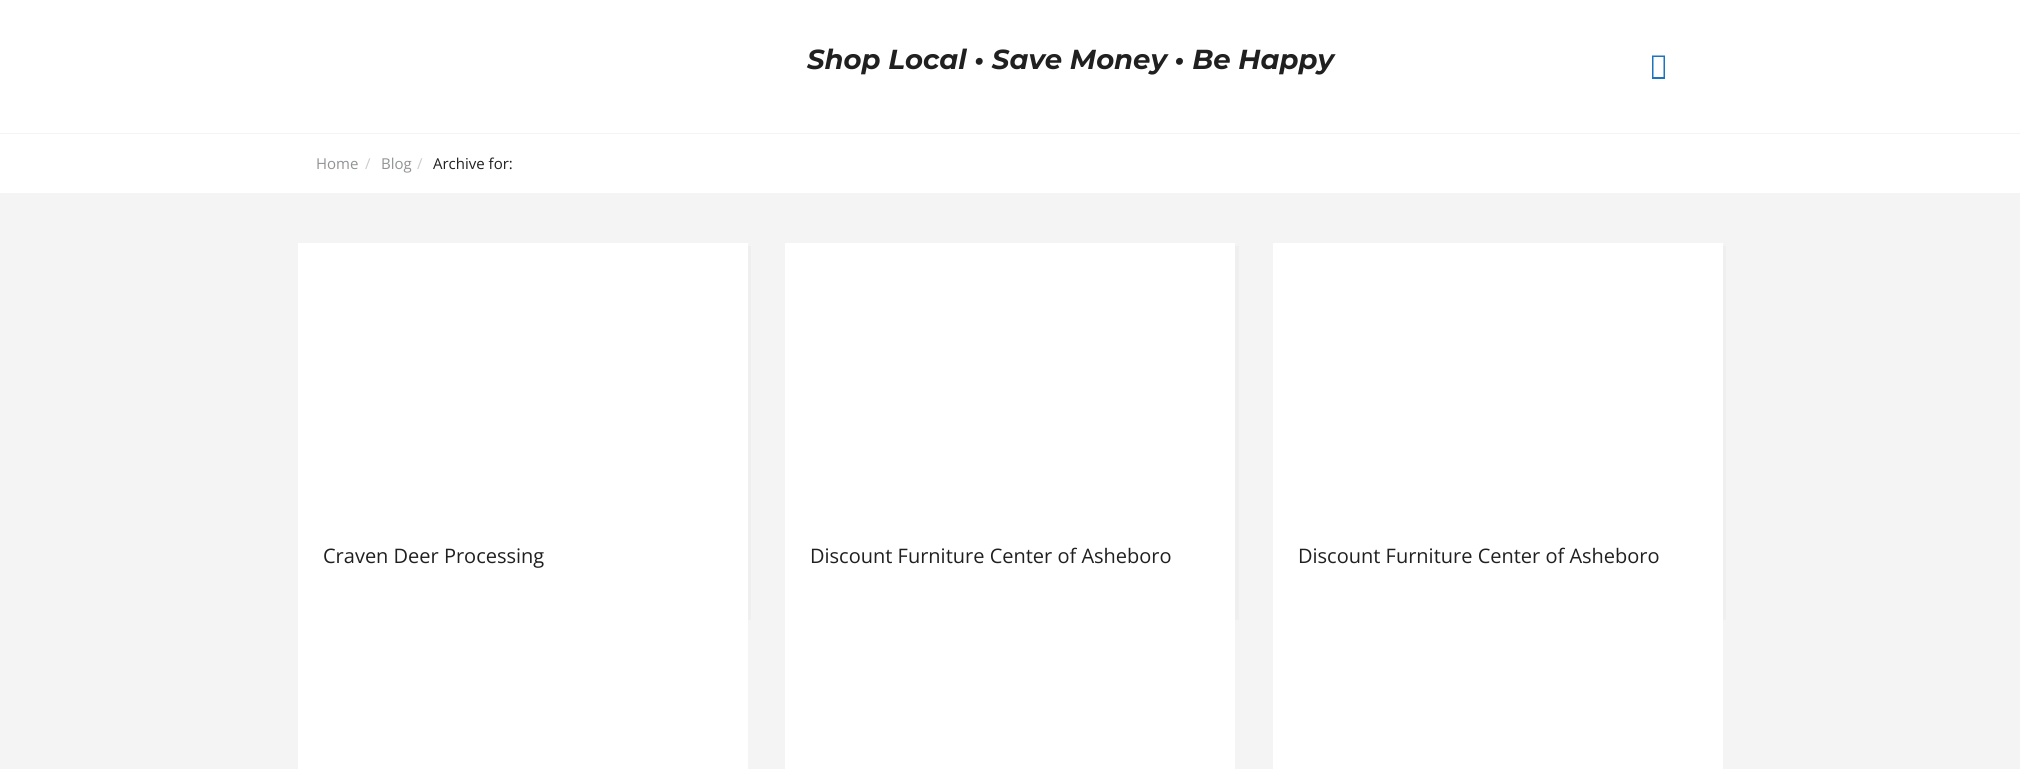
#include <cairo.h>
#include <math.h>
#include <stddef.h>

typedef struct { const char *family; double size; int italic, bold; unsigned color; } style_t;
static cairo_t *ctx;

static void ink(unsigned color) {
    cairo_set_source_rgb(ctx, (color >> 16) / 255.0, (color >> 8 & 255) / 255.0, (color & 255) / 255.0);
}

static void write(double x, double y, const char *s, const style_t *st) {
    cairo_select_font_face(ctx, st->family, st->italic ? CAIRO_FONT_SLANT_ITALIC : CAIRO_FONT_SLANT_NORMAL,
        st->bold ? CAIRO_FONT_WEIGHT_BOLD : CAIRO_FONT_WEIGHT_NORMAL);
    cairo_set_font_size(ctx, st->size);
    ink(st->color);
    cairo_move_to(ctx, x, y);
    cairo_show_text(ctx, s);
}

static void block(double x, double y, double w, double h, unsigned color) {
    ink(color);
    cairo_rectangle(ctx, x, y, w, h);
    cairo_fill(ctx);
}

static const style_t s1 = {"Montserrat", 27.5, 1, 1, 0x202020};
static const style_t s2 = {"Open Sans", 15, 0, 0, 0x919394};
static const style_t s3 = {"Open Sans", 15, 0, 0, 0xcccccc};
static const style_t s4 = {"Open Sans", 15, 0, 0, 0x202020};
static const style_t s5 = {"Open Sans", 20, 0, 0, 0x202020};

int main(void) {
    cairo_surface_t *surface = cairo_image_surface_create(CAIRO_FORMAT_RGB24, 2020, 769);
    ctx = cairo_create(surface);
    cairo_font_options_t *options = cairo_font_options_create();
    cairo_font_options_set_hint_metrics(options, CAIRO_HINT_METRICS_OFF);
    cairo_font_options_set_hint_style(options, CAIRO_HINT_STYLE_NONE);
    cairo_set_font_options(ctx, options);
    cairo_set_miter_limit(ctx, 4);
    ink(0xf4f4f4);
    cairo_paint(ctx);
    block(0, 0, 2020, 133, 0xffffff);
    write(807, 69, "Shop Local • Save Money • Be Happy", &s1);
    ink(0x1e73be);
    cairo_new_path(ctx);
    cairo_move_to(ctx, 1652, 79);
    cairo_line_to(ctx, 1652, 55.5);
    cairo_line_to(ctx, 1665, 55.5);
    cairo_line_to(ctx, 1665, 79);
    cairo_close_path(ctx);
    cairo_move_to(ctx, 1653.5, 77);
    cairo_line_to(ctx, 1663.5, 77);
    cairo_line_to(ctx, 1663.5, 57);
    cairo_line_to(ctx, 1653.5, 57);
    cairo_close_path(ctx);
    cairo_fill(ctx);
    block(0, 134, 2020, 59, 0xffffff);
    write(316, 169, "Home", &s2);
    write(365, 169, "/", &s3);
    write(381, 169, "Blog", &s2);
    write(417, 169, "/", &s3);
    write(433, 169, "Archive for:", &s4);
    ink(0xefefef);
    cairo_new_path(ctx);
    cairo_move_to(ctx, 301, 616);
    cairo_line_to(ctx, 301, 620);
    cairo_line_to(ctx, 751, 620);
    cairo_line_to(ctx, 751, 246);
    cairo_line_to(ctx, 748, 246);
    cairo_line_to(ctx, 748, 616);
    cairo_close_path(ctx);
    cairo_fill(ctx);
    block(298, 243, 450, 526, 0xffffff);
    write(323, 563, "Craven Deer Processing", &s5);
    ink(0xefefef);
    cairo_new_path(ctx);
    cairo_move_to(ctx, 789, 616);
    cairo_line_to(ctx, 789, 620);
    cairo_line_to(ctx, 1239, 620);
    cairo_line_to(ctx, 1239, 246);
    cairo_line_to(ctx, 1235, 246);
    cairo_line_to(ctx, 1235, 616);
    cairo_close_path(ctx);
    cairo_fill(ctx);
    block(785, 243, 450, 526, 0xffffff);
    write(810, 563, "Discount Furniture Center of Asheboro", &s5);
    ink(0xefefef);
    cairo_new_path(ctx);
    cairo_move_to(ctx, 1276, 616);
    cairo_line_to(ctx, 1276, 620);
    cairo_line_to(ctx, 1726, 620);
    cairo_line_to(ctx, 1726, 246);
    cairo_line_to(ctx, 1722, 246);
    cairo_line_to(ctx, 1722, 616);
    cairo_close_path(ctx);
    cairo_fill(ctx);
    block(1273, 243, 450, 526, 0xffffff);
    write(1298, 563, "Discount Furniture Center of Asheboro", &s5);
    cairo_surface_write_to_png(surface, "screenshot.png");
    cairo_font_options_destroy(options);
    cairo_destroy(ctx);
    cairo_surface_destroy(surface);
    return 0;
}
